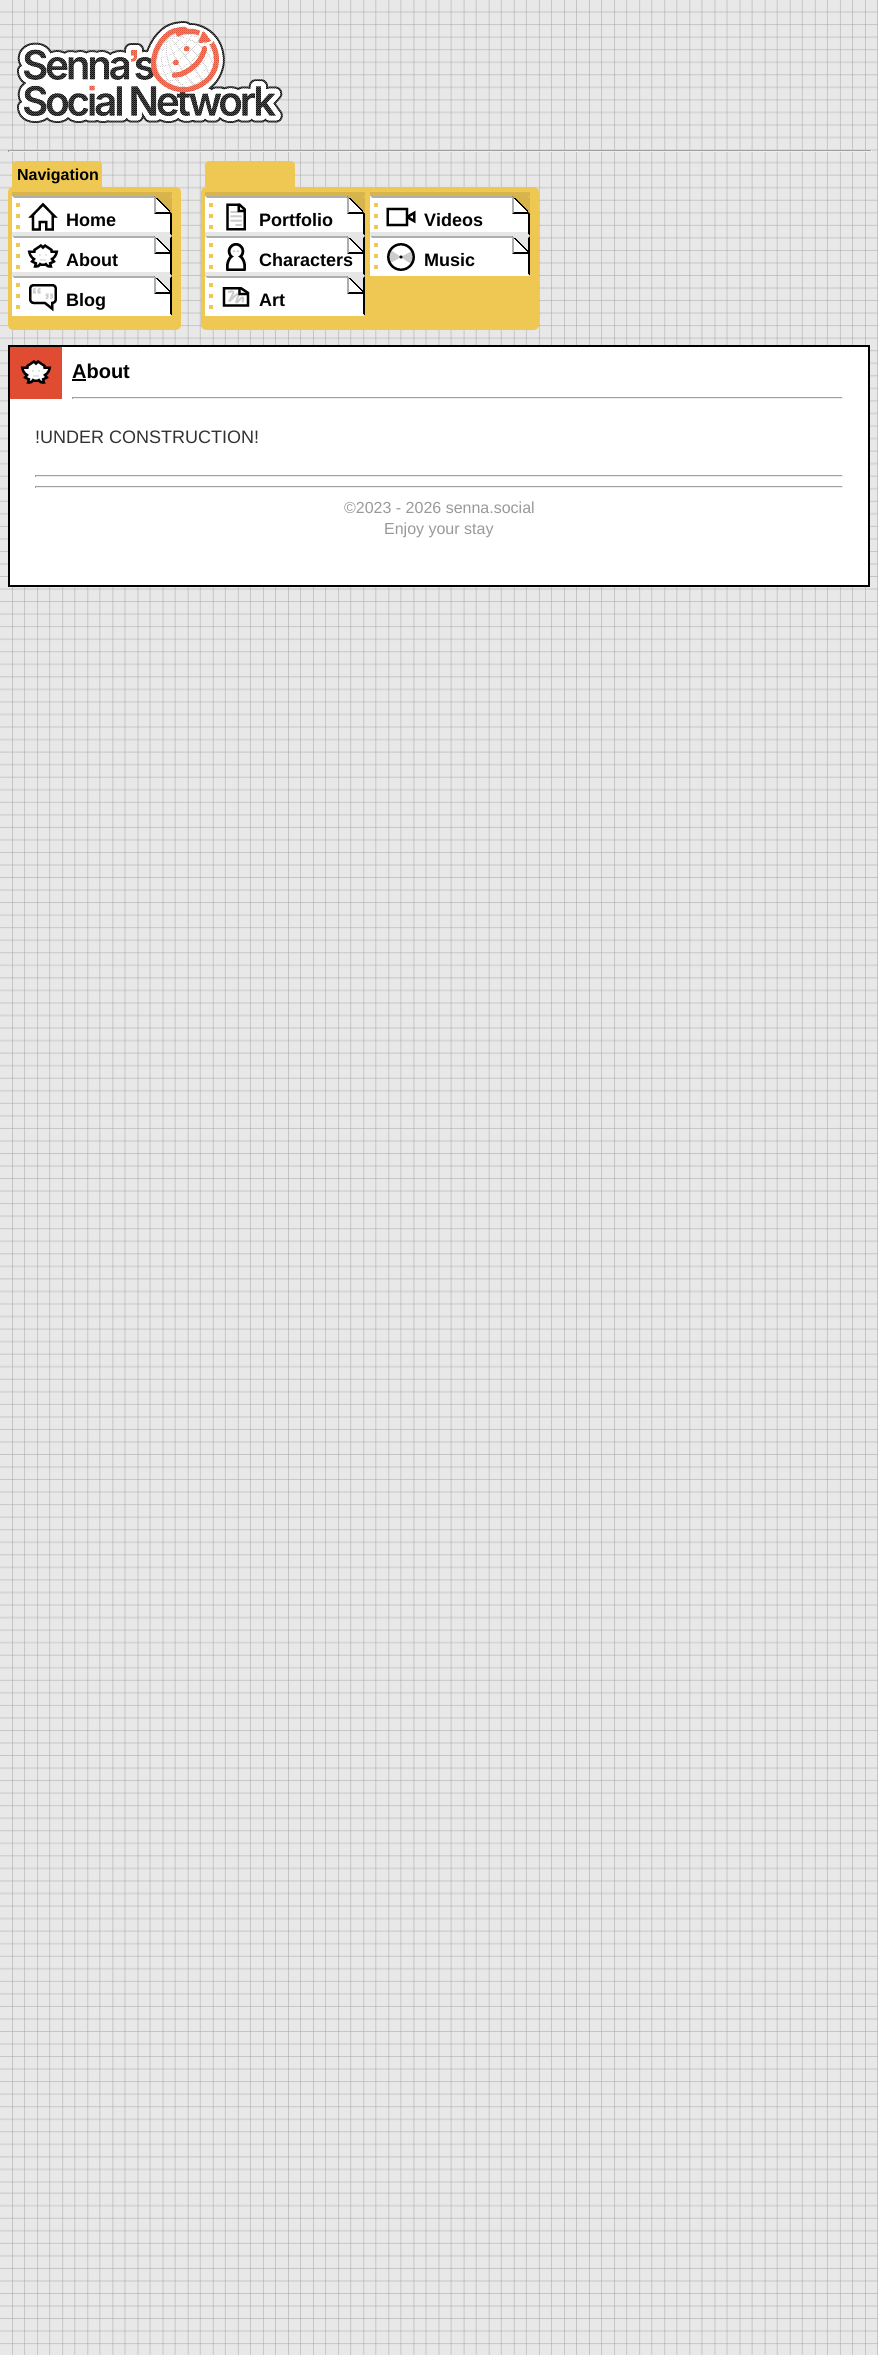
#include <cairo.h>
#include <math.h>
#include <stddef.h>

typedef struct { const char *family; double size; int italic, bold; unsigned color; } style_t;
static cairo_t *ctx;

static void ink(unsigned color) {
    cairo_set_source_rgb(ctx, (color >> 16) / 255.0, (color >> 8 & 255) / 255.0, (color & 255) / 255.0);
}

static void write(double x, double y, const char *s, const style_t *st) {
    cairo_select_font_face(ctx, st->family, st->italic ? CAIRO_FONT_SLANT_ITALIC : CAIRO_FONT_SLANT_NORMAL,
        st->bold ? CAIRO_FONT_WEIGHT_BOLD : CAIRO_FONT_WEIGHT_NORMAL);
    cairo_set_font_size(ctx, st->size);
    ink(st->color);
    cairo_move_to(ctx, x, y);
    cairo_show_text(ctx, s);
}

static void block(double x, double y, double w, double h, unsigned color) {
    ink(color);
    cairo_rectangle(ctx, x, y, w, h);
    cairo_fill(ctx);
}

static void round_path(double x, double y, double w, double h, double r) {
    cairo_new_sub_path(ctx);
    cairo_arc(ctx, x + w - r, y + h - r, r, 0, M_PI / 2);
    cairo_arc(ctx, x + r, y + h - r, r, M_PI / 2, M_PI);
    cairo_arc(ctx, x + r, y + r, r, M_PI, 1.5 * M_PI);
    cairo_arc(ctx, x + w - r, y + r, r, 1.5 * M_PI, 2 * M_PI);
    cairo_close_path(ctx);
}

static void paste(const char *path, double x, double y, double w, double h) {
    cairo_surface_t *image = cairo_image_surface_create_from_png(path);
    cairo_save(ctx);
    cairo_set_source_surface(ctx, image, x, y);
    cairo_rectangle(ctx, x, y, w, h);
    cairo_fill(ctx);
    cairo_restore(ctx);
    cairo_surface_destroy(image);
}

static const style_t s1 = {"Liberation Sans", 16, 0, 1, 0x000000};
static const style_t s2 = {"Liberation Sans", 18, 0, 1, 0x000000};
static const style_t s3 = {"Liberation Sans", 20, 0, 1, 0x000000};
static const style_t s4 = {"Liberation Sans", 18, 0, 0, 0x333333};
static const style_t s5 = {"Liberation Sans", 16, 0, 0, 0x999999};

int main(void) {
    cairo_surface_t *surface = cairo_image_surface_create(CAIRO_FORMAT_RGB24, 878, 2355);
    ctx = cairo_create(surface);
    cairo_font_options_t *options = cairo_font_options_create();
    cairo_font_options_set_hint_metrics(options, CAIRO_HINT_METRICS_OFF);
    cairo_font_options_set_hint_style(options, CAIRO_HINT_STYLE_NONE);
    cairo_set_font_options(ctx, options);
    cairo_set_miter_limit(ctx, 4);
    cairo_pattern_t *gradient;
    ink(0xffffff);
    cairo_paint(ctx);
    paste("pic1.png", 0, 0, 878, 2355);
    paste("pic2.png", 17, 21, 266, 102);
    block(8, 150, 864, 1, 0x9f9f9f);
    block(871, 150, 1, 2, 0xeeeeee);
    block(8, 151, 864, 1, 0xeeeeee);
    block(8, 150, 1, 2, 0x9f9f9f);
    ink(0xefc854);
    cairo_new_path(ctx);
    cairo_move_to(ctx, 17, 161);
    cairo_line_to(ctx, 97, 161);
    cairo_curve_to(ctx, 100, 161, 102, 163, 102, 166);
    cairo_line_to(ctx, 102, 187);
    cairo_line_to(ctx, 12, 187);
    cairo_line_to(ctx, 12, 166);
    cairo_curve_to(ctx, 12, 163, 14, 161, 17, 161);
    cairo_close_path(ctx);
    cairo_fill(ctx);
    cairo_set_fill_rule(ctx, CAIRO_FILL_RULE_EVEN_ODD);
    cairo_new_path(ctx);
    cairo_move_to(ctx, 17, 161);
    cairo_line_to(ctx, 97, 161);
    cairo_curve_to(ctx, 100, 161, 102, 163, 102, 166);
    cairo_line_to(ctx, 102, 187);
    cairo_line_to(ctx, 12, 187);
    cairo_line_to(ctx, 12, 166);
    cairo_curve_to(ctx, 12, 163, 14, 161, 17, 161);
    cairo_close_path(ctx);
    cairo_move_to(ctx, 17, 163);
    cairo_line_to(ctx, 97, 163);
    cairo_curve_to(ctx, 99, 163, 100, 164, 100, 166);
    cairo_line_to(ctx, 100, 187);
    cairo_line_to(ctx, 14, 187);
    cairo_line_to(ctx, 14, 166);
    cairo_curve_to(ctx, 14, 164, 15, 163, 17, 163);
    cairo_close_path(ctx);
    cairo_fill(ctx);
    write(17, 180, "Navigation", &s1);
    ink(0xefc854);
    round_path(10, 189, 169, 139, 3);
    cairo_fill_preserve(ctx);
    cairo_set_line_width(ctx, 4);
    cairo_stroke(ctx);
    block(12, 192, 160, 4, 0xd7b44c);
    block(12, 196, 160, 120, 0xffffff);
    ink(0xaeaeae);
    cairo_set_fill_rule(ctx, CAIRO_FILL_RULE_WINDING);
    cairo_new_path(ctx);
    cairo_move_to(ctx, 12, 196);
    cairo_line_to(ctx, 172, 196);
    cairo_line_to(ctx, 170, 198);
    cairo_line_to(ctx, 14, 198);
    cairo_close_path(ctx);
    cairo_fill(ctx);
    ink(0x000000);
    cairo_new_path(ctx);
    cairo_move_to(ctx, 172, 196);
    cairo_line_to(ctx, 172, 236);
    cairo_line_to(ctx, 170, 234);
    cairo_line_to(ctx, 170, 198);
    cairo_close_path(ctx);
    cairo_fill(ctx);
    ink(0xffffff);
    cairo_new_path(ctx);
    cairo_move_to(ctx, 172, 236);
    cairo_line_to(ctx, 12, 236);
    cairo_line_to(ctx, 14, 234);
    cairo_line_to(ctx, 170, 234);
    cairo_close_path(ctx);
    cairo_fill(ctx);
    cairo_new_path(ctx);
    cairo_move_to(ctx, 12, 236);
    cairo_line_to(ctx, 12, 196);
    cairo_line_to(ctx, 14, 198);
    cairo_line_to(ctx, 14, 234);
    cairo_close_path(ctx);
    cairo_fill(ctx);
    gradient = cairo_pattern_create_linear(18, 203, 18, 236);
    cairo_pattern_add_color_stop_rgba(gradient, 0, 0.937, 0.784, 0.329, 1);
    cairo_pattern_add_color_stop_rgba(gradient, 0.12, 0.937, 0.784, 0.329, 1);
    cairo_pattern_add_color_stop_rgba(gradient, 0.12, 1, 1, 1, 1);
    cairo_pattern_add_color_stop_rgba(gradient, 0.33, 1, 1, 1, 1);
    cairo_pattern_add_color_stop_rgba(gradient, 0.33, 0.937, 0.784, 0.329, 1);
    cairo_pattern_add_color_stop_rgba(gradient, 0.45, 0.937, 0.784, 0.329, 1);
    cairo_pattern_add_color_stop_rgba(gradient, 0.45, 1, 1, 1, 1);
    cairo_pattern_add_color_stop_rgba(gradient, 0.67, 1, 1, 1, 1);
    cairo_pattern_add_color_stop_rgba(gradient, 0.67, 0.937, 0.784, 0.329, 1);
    cairo_pattern_add_color_stop_rgba(gradient, 0.79, 0.937, 0.784, 0.329, 1);
    cairo_pattern_add_color_stop_rgba(gradient, 0.79, 1, 1, 1, 1);
    cairo_pattern_add_color_stop_rgba(gradient, 1, 1, 1, 1, 1);
    cairo_set_source(ctx, gradient);
    cairo_pattern_destroy(gradient);
    cairo_rectangle(ctx, 16, 203, 4, 26);
    cairo_fill(ctx);
    paste("pic3.png", 28, 202, 30, 29);
    write(66, 226, "Home", &s2);
    paste("pic4.png", 154, 196, 18, 18);
    ink(0xd7b44b);
    cairo_new_path(ctx);
    cairo_move_to(ctx, 154, 196);
    cairo_line_to(ctx, 172, 196);
    cairo_line_to(ctx, 170, 198);
    cairo_line_to(ctx, 156, 198);
    cairo_close_path(ctx);
    cairo_fill(ctx);
    cairo_new_path(ctx);
    cairo_move_to(ctx, 172, 196);
    cairo_line_to(ctx, 172, 214);
    cairo_line_to(ctx, 170, 212);
    cairo_line_to(ctx, 170, 198);
    cairo_close_path(ctx);
    cairo_fill(ctx);
    ink(0x000000);
    cairo_new_path(ctx);
    cairo_move_to(ctx, 172, 214);
    cairo_line_to(ctx, 154, 214);
    cairo_line_to(ctx, 156, 212);
    cairo_line_to(ctx, 170, 212);
    cairo_close_path(ctx);
    cairo_fill(ctx);
    ink(0xaeaeae);
    cairo_new_path(ctx);
    cairo_move_to(ctx, 154, 214);
    cairo_line_to(ctx, 154, 196);
    cairo_line_to(ctx, 156, 198);
    cairo_line_to(ctx, 156, 212);
    cairo_close_path(ctx);
    cairo_fill(ctx);
    cairo_set_source_rgba(ctx, 0, 0, 0, 0.1);
    cairo_rectangle(ctx, 12, 232, 160, 4);
    cairo_fill(ctx);
    ink(0xaeaeae);
    cairo_new_path(ctx);
    cairo_move_to(ctx, 12, 236);
    cairo_line_to(ctx, 172, 236);
    cairo_line_to(ctx, 170, 238);
    cairo_line_to(ctx, 14, 238);
    cairo_close_path(ctx);
    cairo_fill(ctx);
    ink(0x000000);
    cairo_new_path(ctx);
    cairo_move_to(ctx, 172, 236);
    cairo_line_to(ctx, 172, 276);
    cairo_line_to(ctx, 170, 274);
    cairo_line_to(ctx, 170, 238);
    cairo_close_path(ctx);
    cairo_fill(ctx);
    ink(0xffffff);
    cairo_new_path(ctx);
    cairo_move_to(ctx, 172, 276);
    cairo_line_to(ctx, 12, 276);
    cairo_line_to(ctx, 14, 274);
    cairo_line_to(ctx, 170, 274);
    cairo_close_path(ctx);
    cairo_fill(ctx);
    cairo_new_path(ctx);
    cairo_move_to(ctx, 12, 276);
    cairo_line_to(ctx, 12, 236);
    cairo_line_to(ctx, 14, 238);
    cairo_line_to(ctx, 14, 274);
    cairo_close_path(ctx);
    cairo_fill(ctx);
    gradient = cairo_pattern_create_linear(18, 243, 18, 276);
    cairo_pattern_add_color_stop_rgba(gradient, 0, 0.937, 0.784, 0.329, 1);
    cairo_pattern_add_color_stop_rgba(gradient, 0.12, 0.937, 0.784, 0.329, 1);
    cairo_pattern_add_color_stop_rgba(gradient, 0.12, 1, 1, 1, 1);
    cairo_pattern_add_color_stop_rgba(gradient, 0.33, 1, 1, 1, 1);
    cairo_pattern_add_color_stop_rgba(gradient, 0.33, 0.937, 0.784, 0.329, 1);
    cairo_pattern_add_color_stop_rgba(gradient, 0.45, 0.937, 0.784, 0.329, 1);
    cairo_pattern_add_color_stop_rgba(gradient, 0.45, 1, 1, 1, 1);
    cairo_pattern_add_color_stop_rgba(gradient, 0.67, 1, 1, 1, 1);
    cairo_pattern_add_color_stop_rgba(gradient, 0.67, 0.937, 0.784, 0.329, 1);
    cairo_pattern_add_color_stop_rgba(gradient, 0.79, 0.937, 0.784, 0.329, 1);
    cairo_pattern_add_color_stop_rgba(gradient, 0.79, 1, 1, 1, 1);
    cairo_pattern_add_color_stop_rgba(gradient, 1, 1, 1, 1, 1);
    cairo_set_source(ctx, gradient);
    cairo_pattern_destroy(gradient);
    cairo_rectangle(ctx, 16, 243, 4, 26);
    cairo_fill(ctx);
    paste("pic5.png", 27, 244, 32, 24);
    write(66, 266, "About", &s2);
    paste("pic6.png", 154, 236, 18, 18);
    ink(0xe5e5e5);
    cairo_new_path(ctx);
    cairo_move_to(ctx, 154, 236);
    cairo_line_to(ctx, 172, 236);
    cairo_line_to(ctx, 170, 238);
    cairo_line_to(ctx, 156, 238);
    cairo_close_path(ctx);
    cairo_fill(ctx);
    ink(0x000000);
    cairo_new_path(ctx);
    cairo_move_to(ctx, 172, 236);
    cairo_line_to(ctx, 172, 254);
    cairo_line_to(ctx, 170, 252);
    cairo_line_to(ctx, 170, 238);
    cairo_close_path(ctx);
    cairo_fill(ctx);
    cairo_new_path(ctx);
    cairo_move_to(ctx, 172, 254);
    cairo_line_to(ctx, 154, 254);
    cairo_line_to(ctx, 156, 252);
    cairo_line_to(ctx, 170, 252);
    cairo_close_path(ctx);
    cairo_fill(ctx);
    ink(0xaeaeae);
    cairo_new_path(ctx);
    cairo_move_to(ctx, 154, 254);
    cairo_line_to(ctx, 154, 236);
    cairo_line_to(ctx, 156, 238);
    cairo_line_to(ctx, 156, 252);
    cairo_close_path(ctx);
    cairo_fill(ctx);
    cairo_set_source_rgba(ctx, 0, 0, 0, 0.1);
    cairo_rectangle(ctx, 12, 272, 160, 4);
    cairo_fill(ctx);
    ink(0xaeaeae);
    cairo_new_path(ctx);
    cairo_move_to(ctx, 12, 276);
    cairo_line_to(ctx, 172, 276);
    cairo_line_to(ctx, 170, 278);
    cairo_line_to(ctx, 14, 278);
    cairo_close_path(ctx);
    cairo_fill(ctx);
    ink(0x000000);
    cairo_new_path(ctx);
    cairo_move_to(ctx, 172, 276);
    cairo_line_to(ctx, 172, 316);
    cairo_line_to(ctx, 170, 314);
    cairo_line_to(ctx, 170, 278);
    cairo_close_path(ctx);
    cairo_fill(ctx);
    ink(0xffffff);
    cairo_new_path(ctx);
    cairo_move_to(ctx, 172, 316);
    cairo_line_to(ctx, 12, 316);
    cairo_line_to(ctx, 14, 314);
    cairo_line_to(ctx, 170, 314);
    cairo_close_path(ctx);
    cairo_fill(ctx);
    cairo_new_path(ctx);
    cairo_move_to(ctx, 12, 316);
    cairo_line_to(ctx, 12, 276);
    cairo_line_to(ctx, 14, 278);
    cairo_line_to(ctx, 14, 314);
    cairo_close_path(ctx);
    cairo_fill(ctx);
    gradient = cairo_pattern_create_linear(18, 283, 18, 316);
    cairo_pattern_add_color_stop_rgba(gradient, 0, 0.937, 0.784, 0.329, 1);
    cairo_pattern_add_color_stop_rgba(gradient, 0.12, 0.937, 0.784, 0.329, 1);
    cairo_pattern_add_color_stop_rgba(gradient, 0.12, 1, 1, 1, 1);
    cairo_pattern_add_color_stop_rgba(gradient, 0.33, 1, 1, 1, 1);
    cairo_pattern_add_color_stop_rgba(gradient, 0.33, 0.937, 0.784, 0.329, 1);
    cairo_pattern_add_color_stop_rgba(gradient, 0.45, 0.937, 0.784, 0.329, 1);
    cairo_pattern_add_color_stop_rgba(gradient, 0.45, 1, 1, 1, 1);
    cairo_pattern_add_color_stop_rgba(gradient, 0.67, 1, 1, 1, 1);
    cairo_pattern_add_color_stop_rgba(gradient, 0.67, 0.937, 0.784, 0.329, 1);
    cairo_pattern_add_color_stop_rgba(gradient, 0.79, 0.937, 0.784, 0.329, 1);
    cairo_pattern_add_color_stop_rgba(gradient, 0.79, 1, 1, 1, 1);
    cairo_pattern_add_color_stop_rgba(gradient, 1, 1, 1, 1, 1);
    cairo_set_source(ctx, gradient);
    cairo_pattern_destroy(gradient);
    cairo_rectangle(ctx, 16, 283, 4, 26);
    cairo_fill(ctx);
    paste("pic7.png", 29, 284, 28, 28);
    write(66, 306, "Blog", &s2);
    paste("pic6.png", 154, 276, 18, 18);
    ink(0xe5e5e5);
    cairo_new_path(ctx);
    cairo_move_to(ctx, 154, 276);
    cairo_line_to(ctx, 172, 276);
    cairo_line_to(ctx, 170, 278);
    cairo_line_to(ctx, 156, 278);
    cairo_close_path(ctx);
    cairo_fill(ctx);
    ink(0x000000);
    cairo_new_path(ctx);
    cairo_move_to(ctx, 172, 276);
    cairo_line_to(ctx, 172, 294);
    cairo_line_to(ctx, 170, 292);
    cairo_line_to(ctx, 170, 278);
    cairo_close_path(ctx);
    cairo_fill(ctx);
    cairo_new_path(ctx);
    cairo_move_to(ctx, 172, 294);
    cairo_line_to(ctx, 154, 294);
    cairo_line_to(ctx, 156, 292);
    cairo_line_to(ctx, 170, 292);
    cairo_close_path(ctx);
    cairo_fill(ctx);
    ink(0xaeaeae);
    cairo_new_path(ctx);
    cairo_move_to(ctx, 154, 294);
    cairo_line_to(ctx, 154, 276);
    cairo_line_to(ctx, 156, 278);
    cairo_line_to(ctx, 156, 292);
    cairo_close_path(ctx);
    cairo_fill(ctx);
    ink(0xefc854);
    cairo_new_path(ctx);
    cairo_move_to(ctx, 210, 161);
    cairo_line_to(ctx, 290, 161);
    cairo_curve_to(ctx, 293, 161, 295, 163, 295, 166);
    cairo_line_to(ctx, 295, 187);
    cairo_line_to(ctx, 205, 187);
    cairo_line_to(ctx, 205, 166);
    cairo_curve_to(ctx, 205, 163, 207, 161, 210, 161);
    cairo_close_path(ctx);
    cairo_fill(ctx);
    cairo_set_fill_rule(ctx, CAIRO_FILL_RULE_EVEN_ODD);
    cairo_new_path(ctx);
    cairo_move_to(ctx, 210, 161);
    cairo_line_to(ctx, 290, 161);
    cairo_curve_to(ctx, 293, 161, 295, 163, 295, 166);
    cairo_line_to(ctx, 295, 187);
    cairo_line_to(ctx, 205, 187);
    cairo_line_to(ctx, 205, 166);
    cairo_curve_to(ctx, 205, 163, 207, 161, 210, 161);
    cairo_close_path(ctx);
    cairo_move_to(ctx, 210, 163);
    cairo_line_to(ctx, 290, 163);
    cairo_curve_to(ctx, 292, 163, 293, 164, 293, 166);
    cairo_line_to(ctx, 293, 187);
    cairo_line_to(ctx, 207, 187);
    cairo_line_to(ctx, 207, 166);
    cairo_curve_to(ctx, 207, 164, 208, 163, 210, 163);
    cairo_close_path(ctx);
    cairo_fill(ctx);
    round_path(203, 189, 334, 139, 3);
    cairo_fill_preserve(ctx);
    cairo_stroke(ctx);
    block(205, 192, 160, 4, 0xd7b44c);
    block(205, 196, 160, 120, 0xffffff);
    ink(0xaeaeae);
    cairo_set_fill_rule(ctx, CAIRO_FILL_RULE_WINDING);
    cairo_new_path(ctx);
    cairo_move_to(ctx, 205, 196);
    cairo_line_to(ctx, 365, 196);
    cairo_line_to(ctx, 363, 198);
    cairo_line_to(ctx, 207, 198);
    cairo_close_path(ctx);
    cairo_fill(ctx);
    ink(0x000000);
    cairo_new_path(ctx);
    cairo_move_to(ctx, 365, 196);
    cairo_line_to(ctx, 365, 236);
    cairo_line_to(ctx, 363, 234);
    cairo_line_to(ctx, 363, 198);
    cairo_close_path(ctx);
    cairo_fill(ctx);
    ink(0xffffff);
    cairo_new_path(ctx);
    cairo_move_to(ctx, 365, 236);
    cairo_line_to(ctx, 205, 236);
    cairo_line_to(ctx, 207, 234);
    cairo_line_to(ctx, 363, 234);
    cairo_close_path(ctx);
    cairo_fill(ctx);
    cairo_new_path(ctx);
    cairo_move_to(ctx, 205, 236);
    cairo_line_to(ctx, 205, 196);
    cairo_line_to(ctx, 207, 198);
    cairo_line_to(ctx, 207, 234);
    cairo_close_path(ctx);
    cairo_fill(ctx);
    gradient = cairo_pattern_create_linear(211, 203, 211, 236);
    cairo_pattern_add_color_stop_rgba(gradient, 0, 0.937, 0.784, 0.329, 1);
    cairo_pattern_add_color_stop_rgba(gradient, 0.12, 0.937, 0.784, 0.329, 1);
    cairo_pattern_add_color_stop_rgba(gradient, 0.12, 1, 1, 1, 1);
    cairo_pattern_add_color_stop_rgba(gradient, 0.33, 1, 1, 1, 1);
    cairo_pattern_add_color_stop_rgba(gradient, 0.33, 0.937, 0.784, 0.329, 1);
    cairo_pattern_add_color_stop_rgba(gradient, 0.45, 0.937, 0.784, 0.329, 1);
    cairo_pattern_add_color_stop_rgba(gradient, 0.45, 1, 1, 1, 1);
    cairo_pattern_add_color_stop_rgba(gradient, 0.67, 1, 1, 1, 1);
    cairo_pattern_add_color_stop_rgba(gradient, 0.67, 0.937, 0.784, 0.329, 1);
    cairo_pattern_add_color_stop_rgba(gradient, 0.79, 0.937, 0.784, 0.329, 1);
    cairo_pattern_add_color_stop_rgba(gradient, 0.79, 1, 1, 1, 1);
    cairo_pattern_add_color_stop_rgba(gradient, 1, 1, 1, 1, 1);
    cairo_set_source(ctx, gradient);
    cairo_pattern_destroy(gradient);
    cairo_rectangle(ctx, 209, 203, 4, 26);
    cairo_fill(ctx);
    paste("pic8.png", 226, 203, 20, 28);
    write(259, 226, "Portfolio", &s2);
    paste("pic4.png", 347, 196, 18, 18);
    ink(0xd7b44b);
    cairo_new_path(ctx);
    cairo_move_to(ctx, 347, 196);
    cairo_line_to(ctx, 365, 196);
    cairo_line_to(ctx, 363, 198);
    cairo_line_to(ctx, 349, 198);
    cairo_close_path(ctx);
    cairo_fill(ctx);
    cairo_new_path(ctx);
    cairo_move_to(ctx, 365, 196);
    cairo_line_to(ctx, 365, 214);
    cairo_line_to(ctx, 363, 212);
    cairo_line_to(ctx, 363, 198);
    cairo_close_path(ctx);
    cairo_fill(ctx);
    ink(0x000000);
    cairo_new_path(ctx);
    cairo_move_to(ctx, 365, 214);
    cairo_line_to(ctx, 347, 214);
    cairo_line_to(ctx, 349, 212);
    cairo_line_to(ctx, 363, 212);
    cairo_close_path(ctx);
    cairo_fill(ctx);
    ink(0xaeaeae);
    cairo_new_path(ctx);
    cairo_move_to(ctx, 347, 214);
    cairo_line_to(ctx, 347, 196);
    cairo_line_to(ctx, 349, 198);
    cairo_line_to(ctx, 349, 212);
    cairo_close_path(ctx);
    cairo_fill(ctx);
    block(370, 192, 160, 4, 0xd7b44c);
    block(370, 196, 160, 80, 0xffffff);
    ink(0xaeaeae);
    cairo_new_path(ctx);
    cairo_move_to(ctx, 370, 196);
    cairo_line_to(ctx, 530, 196);
    cairo_line_to(ctx, 528, 198);
    cairo_line_to(ctx, 372, 198);
    cairo_close_path(ctx);
    cairo_fill(ctx);
    ink(0x000000);
    cairo_new_path(ctx);
    cairo_move_to(ctx, 530, 196);
    cairo_line_to(ctx, 530, 236);
    cairo_line_to(ctx, 528, 234);
    cairo_line_to(ctx, 528, 198);
    cairo_close_path(ctx);
    cairo_fill(ctx);
    ink(0xffffff);
    cairo_new_path(ctx);
    cairo_move_to(ctx, 530, 236);
    cairo_line_to(ctx, 370, 236);
    cairo_line_to(ctx, 372, 234);
    cairo_line_to(ctx, 528, 234);
    cairo_close_path(ctx);
    cairo_fill(ctx);
    cairo_new_path(ctx);
    cairo_move_to(ctx, 370, 236);
    cairo_line_to(ctx, 370, 196);
    cairo_line_to(ctx, 372, 198);
    cairo_line_to(ctx, 372, 234);
    cairo_close_path(ctx);
    cairo_fill(ctx);
    gradient = cairo_pattern_create_linear(376, 203, 376, 236);
    cairo_pattern_add_color_stop_rgba(gradient, 0, 0.937, 0.784, 0.329, 1);
    cairo_pattern_add_color_stop_rgba(gradient, 0.12, 0.937, 0.784, 0.329, 1);
    cairo_pattern_add_color_stop_rgba(gradient, 0.12, 1, 1, 1, 1);
    cairo_pattern_add_color_stop_rgba(gradient, 0.33, 1, 1, 1, 1);
    cairo_pattern_add_color_stop_rgba(gradient, 0.33, 0.937, 0.784, 0.329, 1);
    cairo_pattern_add_color_stop_rgba(gradient, 0.45, 0.937, 0.784, 0.329, 1);
    cairo_pattern_add_color_stop_rgba(gradient, 0.45, 1, 1, 1, 1);
    cairo_pattern_add_color_stop_rgba(gradient, 0.67, 1, 1, 1, 1);
    cairo_pattern_add_color_stop_rgba(gradient, 0.67, 0.937, 0.784, 0.329, 1);
    cairo_pattern_add_color_stop_rgba(gradient, 0.79, 0.937, 0.784, 0.329, 1);
    cairo_pattern_add_color_stop_rgba(gradient, 0.79, 1, 1, 1, 1);
    cairo_pattern_add_color_stop_rgba(gradient, 1, 1, 1, 1, 1);
    cairo_set_source(ctx, gradient);
    cairo_pattern_destroy(gradient);
    cairo_rectangle(ctx, 374, 203, 4, 26);
    cairo_fill(ctx);
    paste("pic9.png", 386, 207, 30, 20);
    write(424, 226, "Videos", &s2);
    paste("pic4.png", 512, 196, 18, 18);
    ink(0xd7b44b);
    cairo_new_path(ctx);
    cairo_move_to(ctx, 512, 196);
    cairo_line_to(ctx, 530, 196);
    cairo_line_to(ctx, 528, 198);
    cairo_line_to(ctx, 514, 198);
    cairo_close_path(ctx);
    cairo_fill(ctx);
    cairo_new_path(ctx);
    cairo_move_to(ctx, 530, 196);
    cairo_line_to(ctx, 530, 214);
    cairo_line_to(ctx, 528, 212);
    cairo_line_to(ctx, 528, 198);
    cairo_close_path(ctx);
    cairo_fill(ctx);
    ink(0x000000);
    cairo_new_path(ctx);
    cairo_move_to(ctx, 530, 214);
    cairo_line_to(ctx, 512, 214);
    cairo_line_to(ctx, 514, 212);
    cairo_line_to(ctx, 528, 212);
    cairo_close_path(ctx);
    cairo_fill(ctx);
    ink(0xaeaeae);
    cairo_new_path(ctx);
    cairo_move_to(ctx, 512, 214);
    cairo_line_to(ctx, 512, 196);
    cairo_line_to(ctx, 514, 198);
    cairo_line_to(ctx, 514, 212);
    cairo_close_path(ctx);
    cairo_fill(ctx);
    cairo_set_source_rgba(ctx, 0, 0, 0, 0.1);
    cairo_rectangle(ctx, 205, 232, 160, 4);
    cairo_fill(ctx);
    ink(0xaeaeae);
    cairo_new_path(ctx);
    cairo_move_to(ctx, 205, 236);
    cairo_line_to(ctx, 365, 236);
    cairo_line_to(ctx, 363, 238);
    cairo_line_to(ctx, 207, 238);
    cairo_close_path(ctx);
    cairo_fill(ctx);
    ink(0x000000);
    cairo_new_path(ctx);
    cairo_move_to(ctx, 365, 236);
    cairo_line_to(ctx, 365, 276);
    cairo_line_to(ctx, 363, 274);
    cairo_line_to(ctx, 363, 238);
    cairo_close_path(ctx);
    cairo_fill(ctx);
    ink(0xffffff);
    cairo_new_path(ctx);
    cairo_move_to(ctx, 365, 276);
    cairo_line_to(ctx, 205, 276);
    cairo_line_to(ctx, 207, 274);
    cairo_line_to(ctx, 363, 274);
    cairo_close_path(ctx);
    cairo_fill(ctx);
    cairo_new_path(ctx);
    cairo_move_to(ctx, 205, 276);
    cairo_line_to(ctx, 205, 236);
    cairo_line_to(ctx, 207, 238);
    cairo_line_to(ctx, 207, 274);
    cairo_close_path(ctx);
    cairo_fill(ctx);
    gradient = cairo_pattern_create_linear(211, 243, 211, 276);
    cairo_pattern_add_color_stop_rgba(gradient, 0, 0.937, 0.784, 0.329, 1);
    cairo_pattern_add_color_stop_rgba(gradient, 0.12, 0.937, 0.784, 0.329, 1);
    cairo_pattern_add_color_stop_rgba(gradient, 0.12, 1, 1, 1, 1);
    cairo_pattern_add_color_stop_rgba(gradient, 0.33, 1, 1, 1, 1);
    cairo_pattern_add_color_stop_rgba(gradient, 0.33, 0.937, 0.784, 0.329, 1);
    cairo_pattern_add_color_stop_rgba(gradient, 0.45, 0.937, 0.784, 0.329, 1);
    cairo_pattern_add_color_stop_rgba(gradient, 0.45, 1, 1, 1, 1);
    cairo_pattern_add_color_stop_rgba(gradient, 0.67, 1, 1, 1, 1);
    cairo_pattern_add_color_stop_rgba(gradient, 0.67, 0.937, 0.784, 0.329, 1);
    cairo_pattern_add_color_stop_rgba(gradient, 0.79, 0.937, 0.784, 0.329, 1);
    cairo_pattern_add_color_stop_rgba(gradient, 0.79, 1, 1, 1, 1);
    cairo_pattern_add_color_stop_rgba(gradient, 1, 1, 1, 1, 1);
    cairo_set_source(ctx, gradient);
    cairo_pattern_destroy(gradient);
    cairo_rectangle(ctx, 209, 243, 4, 26);
    cairo_fill(ctx);
    paste("pic10.png", 226, 243, 20, 28);
    write(259, 266, "Characters", &s2);
    paste("pic6.png", 347, 236, 18, 18);
    ink(0xe5e5e5);
    cairo_new_path(ctx);
    cairo_move_to(ctx, 347, 236);
    cairo_line_to(ctx, 365, 236);
    cairo_line_to(ctx, 363, 238);
    cairo_line_to(ctx, 349, 238);
    cairo_close_path(ctx);
    cairo_fill(ctx);
    ink(0x000000);
    cairo_new_path(ctx);
    cairo_move_to(ctx, 365, 236);
    cairo_line_to(ctx, 365, 254);
    cairo_line_to(ctx, 363, 252);
    cairo_line_to(ctx, 363, 238);
    cairo_close_path(ctx);
    cairo_fill(ctx);
    cairo_new_path(ctx);
    cairo_move_to(ctx, 365, 254);
    cairo_line_to(ctx, 347, 254);
    cairo_line_to(ctx, 349, 252);
    cairo_line_to(ctx, 363, 252);
    cairo_close_path(ctx);
    cairo_fill(ctx);
    ink(0xaeaeae);
    cairo_new_path(ctx);
    cairo_move_to(ctx, 347, 254);
    cairo_line_to(ctx, 347, 236);
    cairo_line_to(ctx, 349, 238);
    cairo_line_to(ctx, 349, 252);
    cairo_close_path(ctx);
    cairo_fill(ctx);
    cairo_set_source_rgba(ctx, 0, 0, 0, 0.1);
    cairo_rectangle(ctx, 370, 232, 160, 4);
    cairo_fill(ctx);
    ink(0xaeaeae);
    cairo_new_path(ctx);
    cairo_move_to(ctx, 370, 236);
    cairo_line_to(ctx, 530, 236);
    cairo_line_to(ctx, 528, 238);
    cairo_line_to(ctx, 372, 238);
    cairo_close_path(ctx);
    cairo_fill(ctx);
    ink(0x000000);
    cairo_new_path(ctx);
    cairo_move_to(ctx, 530, 236);
    cairo_line_to(ctx, 530, 276);
    cairo_line_to(ctx, 528, 274);
    cairo_line_to(ctx, 528, 238);
    cairo_close_path(ctx);
    cairo_fill(ctx);
    ink(0xffffff);
    cairo_new_path(ctx);
    cairo_move_to(ctx, 530, 276);
    cairo_line_to(ctx, 370, 276);
    cairo_line_to(ctx, 372, 274);
    cairo_line_to(ctx, 528, 274);
    cairo_close_path(ctx);
    cairo_fill(ctx);
    cairo_new_path(ctx);
    cairo_move_to(ctx, 370, 276);
    cairo_line_to(ctx, 370, 236);
    cairo_line_to(ctx, 372, 238);
    cairo_line_to(ctx, 372, 274);
    cairo_close_path(ctx);
    cairo_fill(ctx);
    gradient = cairo_pattern_create_linear(376, 243, 376, 276);
    cairo_pattern_add_color_stop_rgba(gradient, 0, 0.937, 0.784, 0.329, 1);
    cairo_pattern_add_color_stop_rgba(gradient, 0.12, 0.937, 0.784, 0.329, 1);
    cairo_pattern_add_color_stop_rgba(gradient, 0.12, 1, 1, 1, 1);
    cairo_pattern_add_color_stop_rgba(gradient, 0.33, 1, 1, 1, 1);
    cairo_pattern_add_color_stop_rgba(gradient, 0.33, 0.937, 0.784, 0.329, 1);
    cairo_pattern_add_color_stop_rgba(gradient, 0.45, 0.937, 0.784, 0.329, 1);
    cairo_pattern_add_color_stop_rgba(gradient, 0.45, 1, 1, 1, 1);
    cairo_pattern_add_color_stop_rgba(gradient, 0.67, 1, 1, 1, 1);
    cairo_pattern_add_color_stop_rgba(gradient, 0.67, 0.937, 0.784, 0.329, 1);
    cairo_pattern_add_color_stop_rgba(gradient, 0.79, 0.937, 0.784, 0.329, 1);
    cairo_pattern_add_color_stop_rgba(gradient, 0.79, 1, 1, 1, 1);
    cairo_pattern_add_color_stop_rgba(gradient, 1, 1, 1, 1, 1);
    cairo_set_source(ctx, gradient);
    cairo_pattern_destroy(gradient);
    cairo_rectangle(ctx, 374, 243, 4, 26);
    cairo_fill(ctx);
    paste("pic11.png", 387, 243, 28, 28);
    write(424, 266, "Music", &s2);
    paste("pic6.png", 512, 236, 18, 18);
    ink(0xe5e5e5);
    cairo_new_path(ctx);
    cairo_move_to(ctx, 512, 236);
    cairo_line_to(ctx, 530, 236);
    cairo_line_to(ctx, 528, 238);
    cairo_line_to(ctx, 514, 238);
    cairo_close_path(ctx);
    cairo_fill(ctx);
    ink(0x000000);
    cairo_new_path(ctx);
    cairo_move_to(ctx, 530, 236);
    cairo_line_to(ctx, 530, 254);
    cairo_line_to(ctx, 528, 252);
    cairo_line_to(ctx, 528, 238);
    cairo_close_path(ctx);
    cairo_fill(ctx);
    cairo_new_path(ctx);
    cairo_move_to(ctx, 530, 254);
    cairo_line_to(ctx, 512, 254);
    cairo_line_to(ctx, 514, 252);
    cairo_line_to(ctx, 528, 252);
    cairo_close_path(ctx);
    cairo_fill(ctx);
    ink(0xaeaeae);
    cairo_new_path(ctx);
    cairo_move_to(ctx, 512, 254);
    cairo_line_to(ctx, 512, 236);
    cairo_line_to(ctx, 514, 238);
    cairo_line_to(ctx, 514, 252);
    cairo_close_path(ctx);
    cairo_fill(ctx);
    cairo_set_source_rgba(ctx, 0, 0, 0, 0.1);
    cairo_rectangle(ctx, 205, 272, 160, 4);
    cairo_fill(ctx);
    ink(0xaeaeae);
    cairo_new_path(ctx);
    cairo_move_to(ctx, 205, 276);
    cairo_line_to(ctx, 365, 276);
    cairo_line_to(ctx, 363, 278);
    cairo_line_to(ctx, 207, 278);
    cairo_close_path(ctx);
    cairo_fill(ctx);
    ink(0x000000);
    cairo_new_path(ctx);
    cairo_move_to(ctx, 365, 276);
    cairo_line_to(ctx, 365, 316);
    cairo_line_to(ctx, 363, 314);
    cairo_line_to(ctx, 363, 278);
    cairo_close_path(ctx);
    cairo_fill(ctx);
    ink(0xffffff);
    cairo_new_path(ctx);
    cairo_move_to(ctx, 365, 316);
    cairo_line_to(ctx, 205, 316);
    cairo_line_to(ctx, 207, 314);
    cairo_line_to(ctx, 363, 314);
    cairo_close_path(ctx);
    cairo_fill(ctx);
    cairo_new_path(ctx);
    cairo_move_to(ctx, 205, 316);
    cairo_line_to(ctx, 205, 276);
    cairo_line_to(ctx, 207, 278);
    cairo_line_to(ctx, 207, 314);
    cairo_close_path(ctx);
    cairo_fill(ctx);
    gradient = cairo_pattern_create_linear(211, 283, 211, 316);
    cairo_pattern_add_color_stop_rgba(gradient, 0, 0.937, 0.784, 0.329, 1);
    cairo_pattern_add_color_stop_rgba(gradient, 0.12, 0.937, 0.784, 0.329, 1);
    cairo_pattern_add_color_stop_rgba(gradient, 0.12, 1, 1, 1, 1);
    cairo_pattern_add_color_stop_rgba(gradient, 0.33, 1, 1, 1, 1);
    cairo_pattern_add_color_stop_rgba(gradient, 0.33, 0.937, 0.784, 0.329, 1);
    cairo_pattern_add_color_stop_rgba(gradient, 0.45, 0.937, 0.784, 0.329, 1);
    cairo_pattern_add_color_stop_rgba(gradient, 0.45, 1, 1, 1, 1);
    cairo_pattern_add_color_stop_rgba(gradient, 0.67, 1, 1, 1, 1);
    cairo_pattern_add_color_stop_rgba(gradient, 0.67, 0.937, 0.784, 0.329, 1);
    cairo_pattern_add_color_stop_rgba(gradient, 0.79, 0.937, 0.784, 0.329, 1);
    cairo_pattern_add_color_stop_rgba(gradient, 0.79, 1, 1, 1, 1);
    cairo_pattern_add_color_stop_rgba(gradient, 1, 1, 1, 1, 1);
    cairo_set_source(ctx, gradient);
    cairo_pattern_destroy(gradient);
    cairo_rectangle(ctx, 209, 283, 4, 26);
    cairo_fill(ctx);
    paste("pic12.png", 222, 287, 28, 20);
    write(259, 306, "Art", &s2);
    paste("pic6.png", 347, 276, 18, 18);
    ink(0xe5e5e5);
    cairo_new_path(ctx);
    cairo_move_to(ctx, 347, 276);
    cairo_line_to(ctx, 365, 276);
    cairo_line_to(ctx, 363, 278);
    cairo_line_to(ctx, 349, 278);
    cairo_close_path(ctx);
    cairo_fill(ctx);
    ink(0x000000);
    cairo_new_path(ctx);
    cairo_move_to(ctx, 365, 276);
    cairo_line_to(ctx, 365, 294);
    cairo_line_to(ctx, 363, 292);
    cairo_line_to(ctx, 363, 278);
    cairo_close_path(ctx);
    cairo_fill(ctx);
    cairo_new_path(ctx);
    cairo_move_to(ctx, 365, 294);
    cairo_line_to(ctx, 347, 294);
    cairo_line_to(ctx, 349, 292);
    cairo_line_to(ctx, 363, 292);
    cairo_close_path(ctx);
    cairo_fill(ctx);
    ink(0xaeaeae);
    cairo_new_path(ctx);
    cairo_move_to(ctx, 347, 294);
    cairo_line_to(ctx, 347, 276);
    cairo_line_to(ctx, 349, 278);
    cairo_line_to(ctx, 349, 292);
    cairo_close_path(ctx);
    cairo_fill(ctx);
    ink(0xffffff);
    cairo_rectangle(ctx, 9, 346, 860, 240);
    cairo_fill_preserve(ctx);
    ink(0x000000);
    cairo_set_line_width(ctx, 2);
    cairo_stroke(ctx);
    block(10, 347, 52, 52, 0xdf4c31);
    paste("pic13.png", 20, 360, 32, 24);
    write(72, 378, "About", &s3);
    block(72, 379, 14, 2, 0x000000);
    block(72, 397, 771, 1, 0x9f9f9f);
    block(842, 397, 1, 2, 0xeeeeee);
    block(72, 398, 771, 1, 0xeeeeee);
    block(72, 397, 1, 2, 0x9f9f9f);
    write(35, 443, "!UNDER CONSTRUCTION!", &s4);
    block(35, 475, 808, 1, 0x9f9f9f);
    block(842, 475, 1, 2, 0xeeeeee);
    block(35, 476, 808, 1, 0xeeeeee);
    block(35, 475, 1, 2, 0x9f9f9f);
    block(35, 486, 808, 1, 0x9f9f9f);
    block(842, 486, 1, 2, 0xeeeeee);
    block(35, 487, 808, 1, 0xeeeeee);
    block(35, 486, 1, 2, 0x9f9f9f);
    write(344, 513, "©2023 - 2026 senna.social", &s5);
    write(384, 534, "Enjoy your stay", &s5);
    cairo_surface_write_to_png(surface, "screenshot.png");
    cairo_font_options_destroy(options);
    cairo_destroy(ctx);
    cairo_surface_destroy(surface);
    return 0;
}
